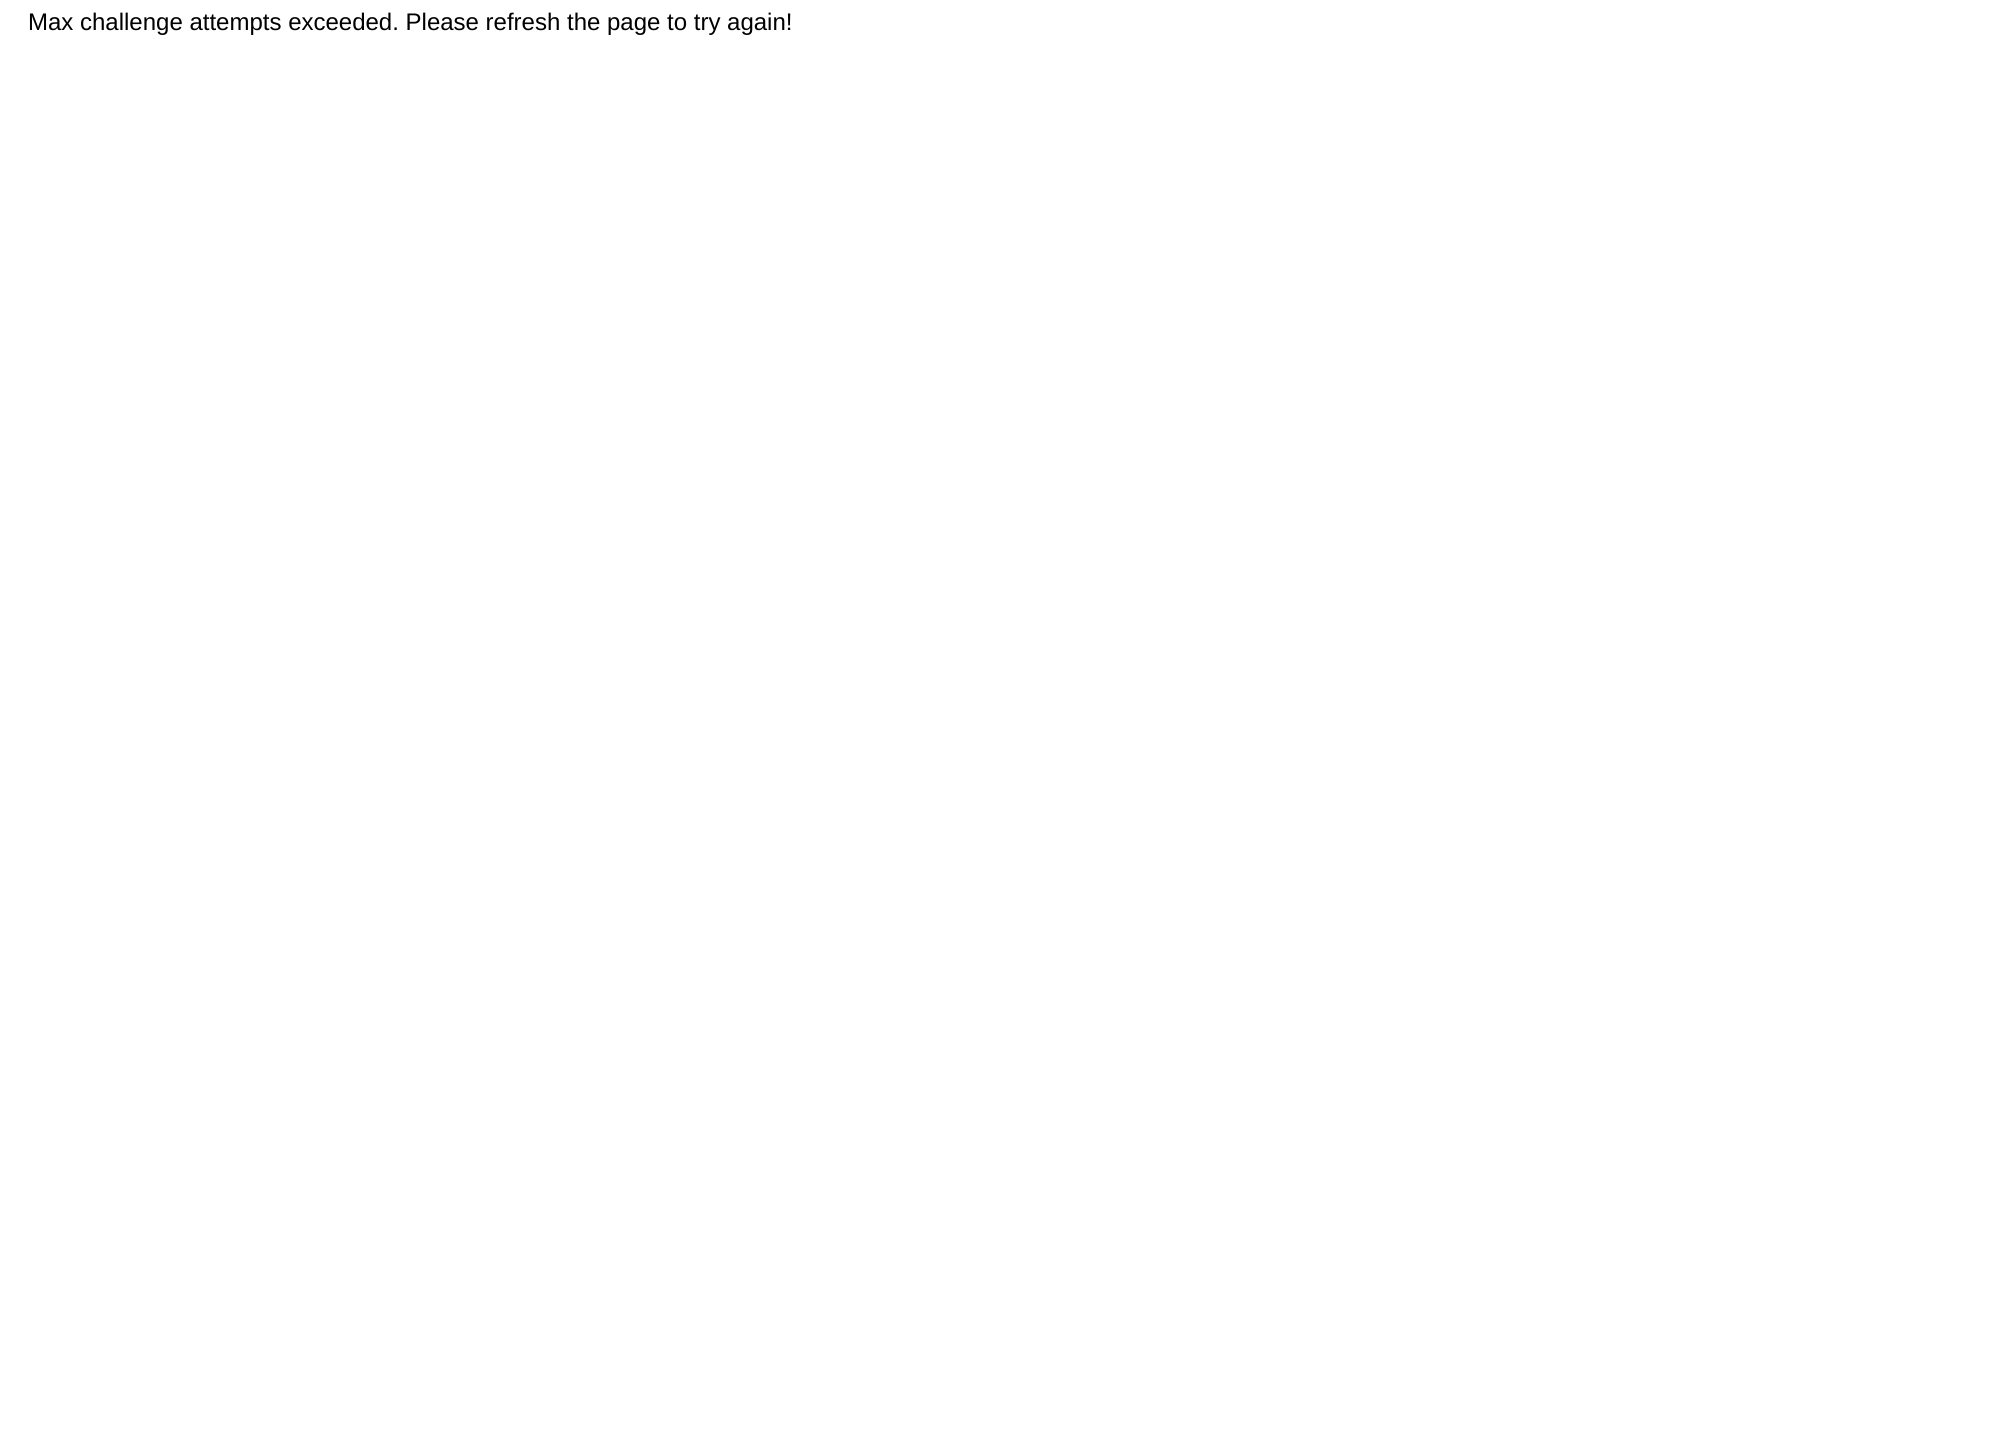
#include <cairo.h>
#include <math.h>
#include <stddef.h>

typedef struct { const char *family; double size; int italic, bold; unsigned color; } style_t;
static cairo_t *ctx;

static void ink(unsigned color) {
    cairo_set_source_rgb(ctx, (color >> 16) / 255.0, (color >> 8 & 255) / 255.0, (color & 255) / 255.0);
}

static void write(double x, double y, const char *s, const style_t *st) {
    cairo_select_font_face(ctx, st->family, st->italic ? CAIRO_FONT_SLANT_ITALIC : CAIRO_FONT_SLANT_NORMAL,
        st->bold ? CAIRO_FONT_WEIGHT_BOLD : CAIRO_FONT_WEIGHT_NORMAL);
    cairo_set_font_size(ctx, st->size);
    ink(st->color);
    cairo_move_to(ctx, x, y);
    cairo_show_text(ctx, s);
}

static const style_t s1 = {"Liberation Sans", 24, 0, 0, 0x000000};

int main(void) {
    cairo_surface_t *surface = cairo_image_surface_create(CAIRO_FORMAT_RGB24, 1993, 1440);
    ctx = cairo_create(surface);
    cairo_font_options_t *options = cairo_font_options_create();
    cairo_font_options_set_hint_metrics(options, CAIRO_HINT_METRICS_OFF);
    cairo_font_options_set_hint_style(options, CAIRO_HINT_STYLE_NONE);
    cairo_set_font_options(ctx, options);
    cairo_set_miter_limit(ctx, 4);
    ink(0xffffff);
    cairo_paint(ctx);
    write(28, 30, "Max challenge attempts exceeded. Please refresh the page to try again!", &s1);
    cairo_surface_write_to_png(surface, "screenshot.png");
    cairo_font_options_destroy(options);
    cairo_destroy(ctx);
    cairo_surface_destroy(surface);
    return 0;
}
